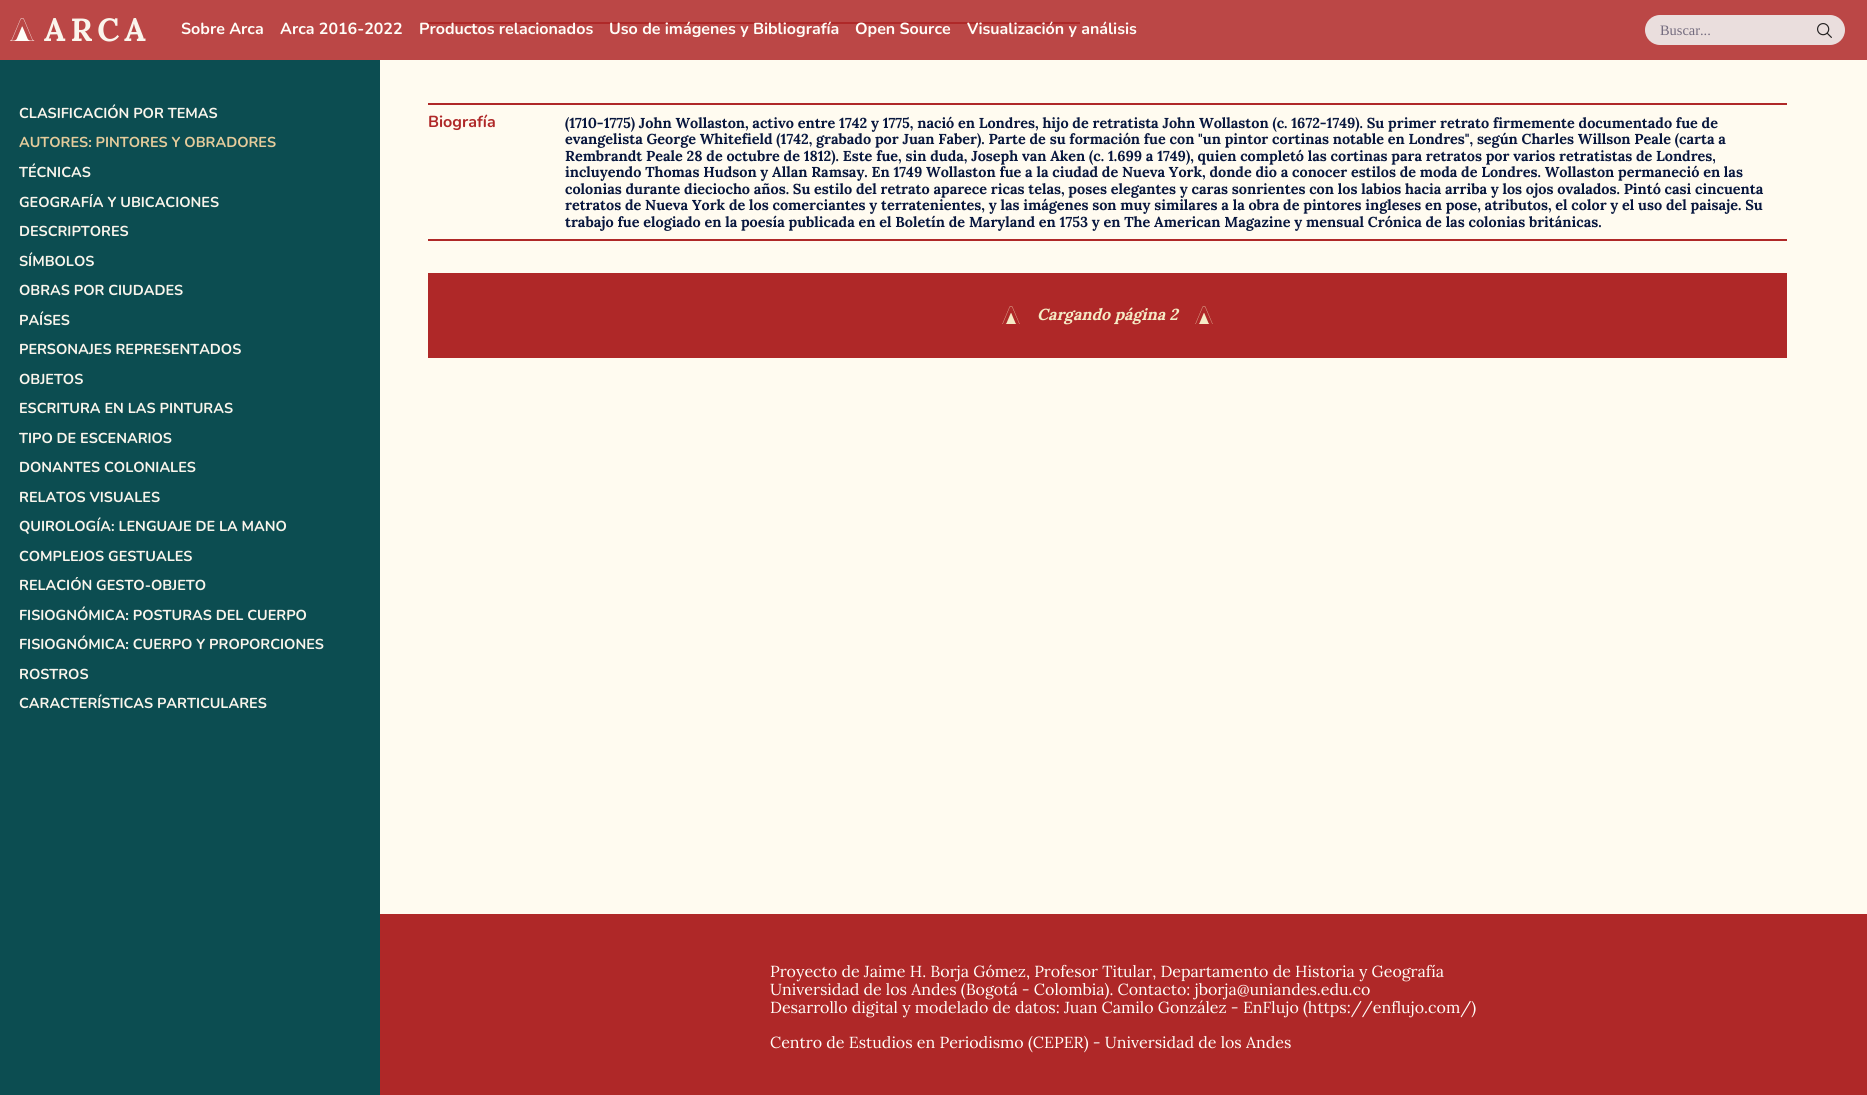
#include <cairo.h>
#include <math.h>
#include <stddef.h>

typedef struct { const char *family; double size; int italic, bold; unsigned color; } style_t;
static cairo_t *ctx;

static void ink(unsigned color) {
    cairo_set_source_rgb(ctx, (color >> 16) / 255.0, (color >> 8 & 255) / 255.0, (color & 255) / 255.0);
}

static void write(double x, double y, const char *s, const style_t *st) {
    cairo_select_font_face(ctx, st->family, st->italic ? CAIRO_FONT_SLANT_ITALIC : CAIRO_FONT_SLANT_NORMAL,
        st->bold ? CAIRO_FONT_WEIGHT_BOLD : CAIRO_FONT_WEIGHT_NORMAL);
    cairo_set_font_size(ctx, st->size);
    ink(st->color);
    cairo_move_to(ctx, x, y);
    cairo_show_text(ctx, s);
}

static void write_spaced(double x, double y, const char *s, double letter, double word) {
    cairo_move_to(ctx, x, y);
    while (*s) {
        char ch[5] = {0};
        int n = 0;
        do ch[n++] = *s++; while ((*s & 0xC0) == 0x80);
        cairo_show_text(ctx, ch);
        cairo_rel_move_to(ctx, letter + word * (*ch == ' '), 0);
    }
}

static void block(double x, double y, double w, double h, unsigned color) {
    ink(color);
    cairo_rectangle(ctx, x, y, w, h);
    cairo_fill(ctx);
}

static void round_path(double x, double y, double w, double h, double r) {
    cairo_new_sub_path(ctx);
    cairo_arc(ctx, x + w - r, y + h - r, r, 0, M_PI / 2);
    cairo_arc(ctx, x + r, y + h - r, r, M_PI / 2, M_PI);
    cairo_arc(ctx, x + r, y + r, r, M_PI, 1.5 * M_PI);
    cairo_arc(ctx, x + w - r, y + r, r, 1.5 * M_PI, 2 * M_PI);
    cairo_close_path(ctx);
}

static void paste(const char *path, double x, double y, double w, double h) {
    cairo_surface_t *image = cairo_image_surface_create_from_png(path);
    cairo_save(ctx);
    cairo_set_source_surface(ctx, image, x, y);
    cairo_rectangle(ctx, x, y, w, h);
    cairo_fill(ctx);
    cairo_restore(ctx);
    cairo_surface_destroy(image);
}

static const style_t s1 = {"Nunito", 16, 0, 1, 0xfffdf8};
static const style_t s2 = {"Liberation Serif", 14.4, 0, 0, 0x736b7e};
static const style_t s3 = {"Nunito", 14.4, 0, 1, 0xfaf5ec};
static const style_t s4 = {"Nunito", 14.4, 0, 1, 0xe5cb9b};
static const style_t s5 = {"Nunito", 16, 0, 1, 0xaf2828};
static const style_t s6 = {"Lora", 14.4, 0, 1, 0x08173e};
static const style_t s7 = {"Lora", 16, 1, 1, 0xf5ebc6};
static const style_t s8 = {"Lora", 16, 0, 0, 0xfffdf8};

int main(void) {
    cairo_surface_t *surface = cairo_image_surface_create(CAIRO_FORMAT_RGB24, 1867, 1095);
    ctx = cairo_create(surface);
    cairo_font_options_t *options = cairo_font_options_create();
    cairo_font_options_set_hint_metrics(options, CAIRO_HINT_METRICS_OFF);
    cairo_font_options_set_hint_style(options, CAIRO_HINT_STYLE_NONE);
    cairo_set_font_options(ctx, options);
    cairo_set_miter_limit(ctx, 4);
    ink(0xfffbf0);
    cairo_paint(ctx);
    block(428, 22, 652, 2, 0xaf2828);
    cairo_set_source_rgba(ctx, 0.686, 0.157, 0.157, 0.85);
    cairo_rectangle(ctx, 0, 0, 1867, 60);
    cairo_fill(ctx);
    paste("pic1.png", 10, 18, 25, 23);
    cairo_select_font_face(ctx, "Lora", CAIRO_FONT_SLANT_NORMAL, CAIRO_FONT_WEIGHT_BOLD);
    cairo_set_font_size(ctx, 32);
    ink(0xfaf5ec);
    write_spaced(44, 41, "ARCA", 5, 0);
    write(181, 34, "Sobre Arca", &s1);
    write(280, 34, "Arca 2016-2022", &s1);
    write(419, 34, "Productos relacionados", &s1);
    write(609, 34, "Uso de imágenes y Bibliografía", &s1);
    write(855, 34, "Open Source", &s1);
    write(967, 34, "Visualización y análisis", &s1);
    ink(0xeadedd);
    round_path(1645, 15, 200, 30, 15);
    cairo_fill(ctx);
    write(1660, 35, "Buscar...", &s2);
    paste("pic2.png", 1817, 23, 15, 15);
    block(0, 60, 380, 1035, 0x0c4d51);
    write(19, 118, "CLASIFICACIÓN POR TEMAS", &s3);
    write(19, 147, "AUTORES: PINTORES Y OBRADORES", &s4);
    write(19, 177, "TÉCNICAS", &s3);
    cairo_save(ctx);
    cairo_rectangle(ctx, 19, 194, 342, 16);
    cairo_clip(ctx);
    write(19, 207, "GEOGRAFÍA Y UBICACIONES", &s3);
    cairo_restore(ctx);
    write(19, 236, "DESCRIPTORES", &s3);
    write(19, 266, "SÍMBOLOS", &s3);
    write(19, 295, "OBRAS POR CIUDADES", &s3);
    write(19, 325, "PAÍSES", &s3);
    write(19, 354, "PERSONAJES REPRESENTADOS", &s3);
    write(19, 384, "OBJETOS", &s3);
    write(19, 413, "ESCRITURA EN LAS PINTURAS", &s3);
    write(19, 443, "TIPO DE ESCENARIOS", &s3);
    write(19, 472, "DONANTES COLONIALES", &s3);
    write(19, 502, "RELATOS VISUALES", &s3);
    write(19, 531, "QUIROLOGÍA: LENGUAJE DE LA MANO", &s3);
    write(19, 561, "COMPLEJOS GESTUALES", &s3);
    cairo_save(ctx);
    cairo_rectangle(ctx, 19, 577, 342, 17);
    cairo_clip(ctx);
    write(19, 590, "RELACIÓN GESTO-OBJETO", &s3);
    cairo_restore(ctx);
    write(19, 620, "FISIOGNÓMICA: POSTURAS DEL CUERPO", &s3);
    write(19, 649, "FISIOGNÓMICA: CUERPO Y PROPORCIONES", &s3);
    write(19, 679, "ROSTROS", &s3);
    write(19, 708, "CARACTERÍSTICAS PARTICULARES", &s3);
    block(428, 103, 1359, 2, 0xaf2828);
    block(428, 239, 1359, 2, 0xaf2828);
    write(428, 127, "Biografía", &s5);
    write(565, 128, "(1710-1775) John Wollaston, activo entre 1742 y 1775, nació en Londres, hijo de retratista John Wollaston (c. 1672-1749). Su primer retrato firmemente documentado fue de", &s6);
    write(565, 144, "evangelista George Whitefield (1742, grabado por Juan Faber). Parte de su formación fue con \"un pintor cortinas notable en Londres\", según Charles Willson Peale (carta a", &s6);
    write(565, 161, "Rembrandt Peale 28 de octubre de 1812). Este fue, sin duda, Joseph van Aken (c. 1.699 a 1749), quien completó las cortinas para retratos por varios retratistas de Londres,", &s6);
    write(565, 177, "incluyendo Thomas Hudson y Allan Ramsay. En 1749 Wollaston fue a la ciudad de Nueva York, donde dio a conocer estilos de moda de Londres. Wollaston permaneció en las", &s6);
    write(565, 194, "colonias durante dieciocho años. Su estilo del retrato aparece ricas telas, poses elegantes y caras sonrientes con los labios hacia arriba y los ojos ovalados. Pintó casi cincuenta", &s6);
    write(565, 210, "retratos de Nueva York de los comerciantes y terratenientes, y las imágenes son muy similares a la obra de pintores ingleses en pose, atributos, el color y el uso del paisaje. Su", &s6);
    write(565, 227, "trabajo fue elogiado en la poesía publicada en el Boletín de Maryland en 1753 y en The American Magazine y mensual Crónica de las colonias británicas.", &s6);
    block(428, 273, 1359, 85, 0xaf2828);
    paste("pic3.png", 1002, 306, 18, 18);
    write(1037, 320, "Cargando página 2", &s7);
    paste("pic3.png", 1195, 306, 18, 18);
    block(380, 914, 1487, 181, 0xaf2828);
    write(770, 977, "Proyecto de Jaime H. Borja Gómez, Profesor Titular, Departamento de Historia y Geografía", &s8);
    write(770, 995, "Universidad de los Andes (Bogotá - Colombia). Contacto: jborja@uniandes.edu.co", &s8);
    write(770, 1013, "Desarrollo digital y modelado de datos: Juan Camilo González - EnFlujo (https://enflujo.com/)", &s8);
    write(770, 1048, "Centro de Estudios en Periodismo (CEPER) - Universidad de los Andes", &s8);
    cairo_surface_write_to_png(surface, "screenshot.png");
    cairo_font_options_destroy(options);
    cairo_destroy(ctx);
    cairo_surface_destroy(surface);
    return 0;
}
